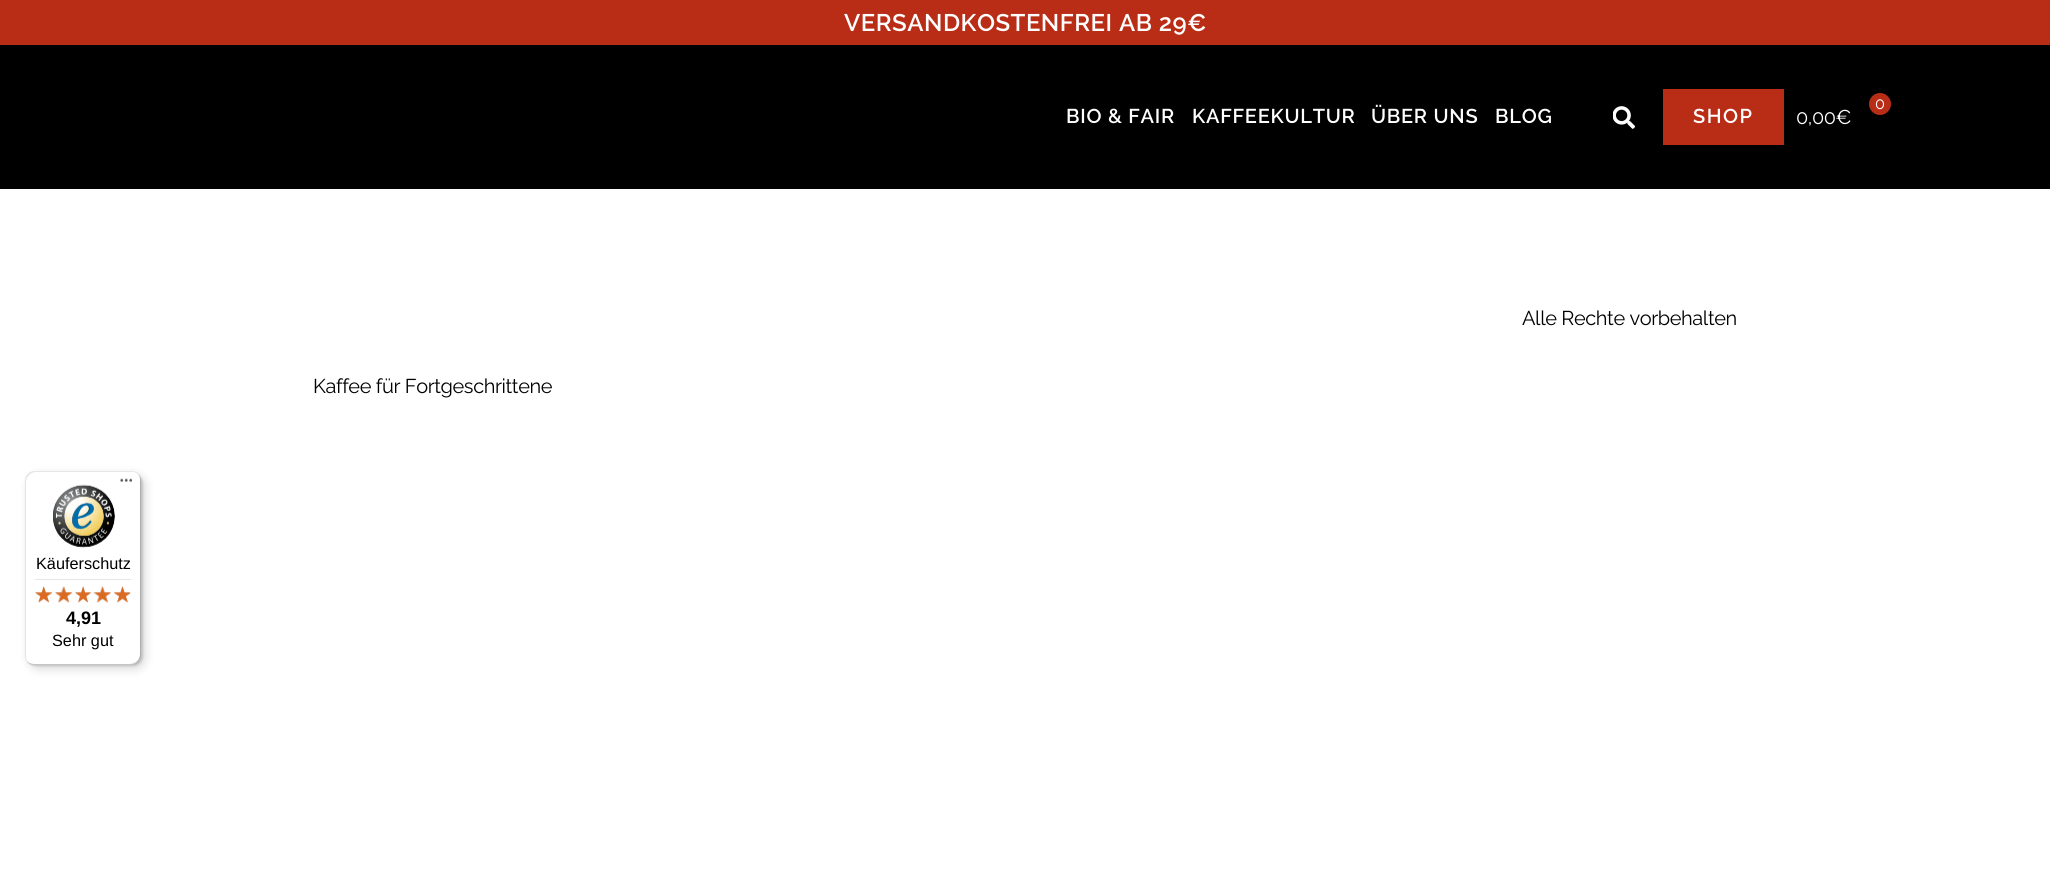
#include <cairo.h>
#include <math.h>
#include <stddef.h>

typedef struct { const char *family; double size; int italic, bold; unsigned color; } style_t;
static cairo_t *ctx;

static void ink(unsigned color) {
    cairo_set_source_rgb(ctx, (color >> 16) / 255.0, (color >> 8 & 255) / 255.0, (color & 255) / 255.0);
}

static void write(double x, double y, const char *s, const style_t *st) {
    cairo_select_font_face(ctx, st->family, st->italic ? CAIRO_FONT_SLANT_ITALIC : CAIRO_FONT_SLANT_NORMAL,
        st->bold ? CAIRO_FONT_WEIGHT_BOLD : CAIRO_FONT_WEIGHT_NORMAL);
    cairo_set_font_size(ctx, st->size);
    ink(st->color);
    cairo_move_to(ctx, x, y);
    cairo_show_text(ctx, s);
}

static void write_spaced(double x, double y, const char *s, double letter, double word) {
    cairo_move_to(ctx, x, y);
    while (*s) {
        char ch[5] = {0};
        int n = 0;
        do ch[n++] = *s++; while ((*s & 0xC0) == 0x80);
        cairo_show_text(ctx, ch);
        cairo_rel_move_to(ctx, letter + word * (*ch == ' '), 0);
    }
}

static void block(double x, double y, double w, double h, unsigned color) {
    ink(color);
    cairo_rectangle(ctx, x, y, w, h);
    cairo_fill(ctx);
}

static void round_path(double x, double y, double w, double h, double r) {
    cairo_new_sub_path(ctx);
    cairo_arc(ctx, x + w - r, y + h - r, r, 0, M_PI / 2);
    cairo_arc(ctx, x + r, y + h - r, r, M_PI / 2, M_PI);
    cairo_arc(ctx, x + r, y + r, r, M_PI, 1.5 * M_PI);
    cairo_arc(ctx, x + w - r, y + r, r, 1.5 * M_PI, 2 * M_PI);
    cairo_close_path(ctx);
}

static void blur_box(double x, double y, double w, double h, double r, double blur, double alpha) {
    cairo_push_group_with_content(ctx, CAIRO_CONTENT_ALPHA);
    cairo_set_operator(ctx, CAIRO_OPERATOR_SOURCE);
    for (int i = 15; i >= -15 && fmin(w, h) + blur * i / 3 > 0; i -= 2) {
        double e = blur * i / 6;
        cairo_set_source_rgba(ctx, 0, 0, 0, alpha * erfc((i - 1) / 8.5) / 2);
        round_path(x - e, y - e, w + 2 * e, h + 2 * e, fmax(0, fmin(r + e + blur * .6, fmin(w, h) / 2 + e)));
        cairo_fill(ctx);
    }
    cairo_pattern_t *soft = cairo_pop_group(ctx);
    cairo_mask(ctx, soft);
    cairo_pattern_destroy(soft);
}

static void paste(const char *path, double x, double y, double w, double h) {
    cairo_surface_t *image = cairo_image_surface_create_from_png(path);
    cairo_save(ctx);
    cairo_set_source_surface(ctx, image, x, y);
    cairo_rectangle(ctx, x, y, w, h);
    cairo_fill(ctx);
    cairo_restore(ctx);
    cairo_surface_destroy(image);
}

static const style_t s1 = {"Liberation Sans", 16.25, 0, 0, 0x000000};
static const style_t s2 = {"Liberation Sans", 18, 0, 1, 0x000000};

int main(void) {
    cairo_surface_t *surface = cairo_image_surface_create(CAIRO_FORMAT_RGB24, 2050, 871);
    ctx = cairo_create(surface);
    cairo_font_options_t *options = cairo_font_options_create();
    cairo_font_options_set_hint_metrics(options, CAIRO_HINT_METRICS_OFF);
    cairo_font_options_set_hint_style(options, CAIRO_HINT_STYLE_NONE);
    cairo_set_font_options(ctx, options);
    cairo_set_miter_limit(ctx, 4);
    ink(0xffffff);
    cairo_paint(ctx);
    block(0, 0, 2050, 45, 0xb92d16);
    cairo_select_font_face(ctx, "Raleway SemiBold", CAIRO_FONT_SLANT_NORMAL, CAIRO_FONT_WEIGHT_NORMAL);
    cairo_set_font_size(ctx, 24);
    ink(0xffffff);
    write_spaced(844, 31, "VERSANDKOSTENFREI", 0.5, 0);
    write_spaced(1119, 31, "AB 29€", 0.5, 0);
    block(0, 45, 2050, 144, 0x000000);
    cairo_set_font_size(ctx, 20);
    ink(0xffffff);
    write_spaced(1066, 123, "BIO & FAIR", 0.75, 0);
    write_spaced(1192, 123, "KAFFEEKULTUR", 0.75, 0);
    write_spaced(1371, 123, "ÜBER UNS", 0.75, 0);
    write_spaced(1495, 123, "BLOG", 0.75, 0);
    paste("pic1.png", 1613, 106, 22, 23);
    block(1663, 89, 121, 56, 0xb92d16);
    ink(0xffffff);
    write_spaced(1693, 123, "SHOP", 1.5, 0);
    ink(0xb92d16);
    cairo_new_path(ctx);
    cairo_arc(ctx, 1880, 104, 11, 0, 2 * M_PI);
    cairo_fill(ctx);
    cairo_select_font_face(ctx, "Raleway", CAIRO_FONT_SLANT_NORMAL, CAIRO_FONT_WEIGHT_NORMAL);
    cairo_set_font_size(ctx, 16.25);
    ink(0xffffff);
    write_spaced(1875, 109, "0", -0.4, 0);
    cairo_set_font_size(ctx, 20);
    write_spaced(1796, 124, "0,00€", -0.4, 0);
    ink(0x000000);
    write_spaced(1522, 325, "Alle Rechte vorbehalten", -0.4, 0);
    write_spaced(313, 393, "Kaffee für Fortgeschrittene", -0.4, 0);
    ink(0x000000);
    blur_box(29, 475, 116, 194, 10, 5, 0.15);
    blur_box(26, 473, 117, 193, 10, 1, 0.15);
    ink(0xffffff);
    round_path(25, 471, 116, 194, 10);
    cairo_fill(ctx);
    cairo_set_source_rgba(ctx, 0, 0, 0, 0.1);
    cairo_new_path(ctx);
    cairo_move_to(ctx, 36, 472);
    cairo_line_to(ctx, 132, 472);
    cairo_curve_to(ctx, 135, 472, 137, 473, 139, 474);
    cairo_curve_to(ctx, 137, 472, 134, 471, 131, 471);
    cairo_line_to(ctx, 35, 471);
    cairo_curve_to(ctx, 29, 471, 25, 475, 25, 481);
    cairo_line_to(ctx, 25, 655);
    cairo_curve_to(ctx, 25, 658, 26, 661, 28, 663);
    cairo_curve_to(ctx, 27, 661, 26, 659, 26, 656);
    cairo_line_to(ctx, 26, 482);
    cairo_curve_to(ctx, 26, 477, 31, 472, 36, 472);
    cairo_close_path(ctx);
    cairo_fill(ctx);
    cairo_set_source_rgba(ctx, 0, 0, 0, 0.2);
    cairo_new_path(ctx);
    cairo_move_to(ctx, 27, 662);
    cairo_curve_to(ctx, 29, 664, 32, 665, 35, 665);
    cairo_line_to(ctx, 131, 665);
    cairo_curve_to(ctx, 137, 665, 141, 661, 141, 655);
    cairo_line_to(ctx, 141, 481);
    cairo_curve_to(ctx, 141, 479, 140, 476, 139, 475);
    cairo_curve_to(ctx, 140, 476, 140, 478, 140, 480);
    cairo_line_to(ctx, 140, 654);
    cairo_curve_to(ctx, 140, 659, 136, 664, 130, 664);
    cairo_line_to(ctx, 34, 664);
    cairo_curve_to(ctx, 31, 664, 29, 663, 27, 662);
    cairo_close_path(ctx);
    cairo_fill(ctx);
    cairo_set_source_rgba(ctx, 0.196, 0.196, 0.196, 0.2);
    cairo_new_path(ctx);
    cairo_move_to(ctx, 27, 661);
    cairo_curve_to(ctx, 29, 664, 32, 665, 35, 665);
    cairo_line_to(ctx, 131, 665);
    cairo_curve_to(ctx, 137, 665, 141, 661, 141, 655);
    cairo_line_to(ctx, 141, 481);
    cairo_curve_to(ctx, 141, 478, 140, 475, 137, 473);
    cairo_curve_to(ctx, 139, 475, 140, 478, 140, 480);
    cairo_line_to(ctx, 140, 654);
    cairo_curve_to(ctx, 140, 660, 136, 664, 130, 664);
    cairo_line_to(ctx, 34, 664);
    cairo_curve_to(ctx, 32, 664, 29, 663, 27, 661);
    cairo_close_path(ctx);
    cairo_fill(ctx);
    paste("pic2.png", 120, 478, 13, 4);
    cairo_set_source_rgba(ctx, 1, 1, 1, 0.3);
    cairo_set_fill_rule(ctx, CAIRO_FILL_RULE_EVEN_ODD);
    cairo_new_path(ctx);
    cairo_move_to(ctx, 27, 661);
    cairo_curve_to(ctx, 29, 664, 32, 665, 35, 665);
    cairo_line_to(ctx, 131, 665);
    cairo_curve_to(ctx, 137, 665, 141, 661, 141, 655);
    cairo_line_to(ctx, 141, 654);
    cairo_curve_to(ctx, 141, 660, 136, 664, 131, 664);
    cairo_line_to(ctx, 34, 664);
    cairo_curve_to(ctx, 32, 664, 29, 663, 27, 661);
    cairo_close_path(ctx);
    cairo_move_to(ctx, 139, 475);
    cairo_curve_to(ctx, 137, 472, 134, 471, 131, 471);
    cairo_curve_to(ctx, 134, 471, 137, 472, 139, 475);
    cairo_close_path(ctx);
    cairo_fill(ctx);
    paste("pic3.png", 53, 484, 62, 64);
    write(36, 569, "Käuferschutz", &s1);
    block(35, 579, 96, 1, 0xe5e5e5);
    paste("pic4.png", 35, 586, 17, 16);
    paste("pic5.png", 55, 586, 17, 17);
    paste("pic6.png", 75, 586, 16, 17);
    paste("pic7.png", 93, 586, 18, 17);
    paste("pic8.png", 114, 586, 17, 17);
    paste("pic9.png", 35, 586, 17, 17);
    paste("pic10.png", 55, 586, 18, 17);
    paste("pic11.png", 75, 586, 16, 17);
    paste("pic12.png", 93, 586, 18, 17);
    paste("pic13.png", 114, 586, 16, 17);
    write(66, 624, "4,91", &s2);
    write(52, 646, "Sehr gut", &s1);
    cairo_surface_write_to_png(surface, "screenshot.png");
    cairo_font_options_destroy(options);
    cairo_destroy(ctx);
    cairo_surface_destroy(surface);
    return 0;
}
